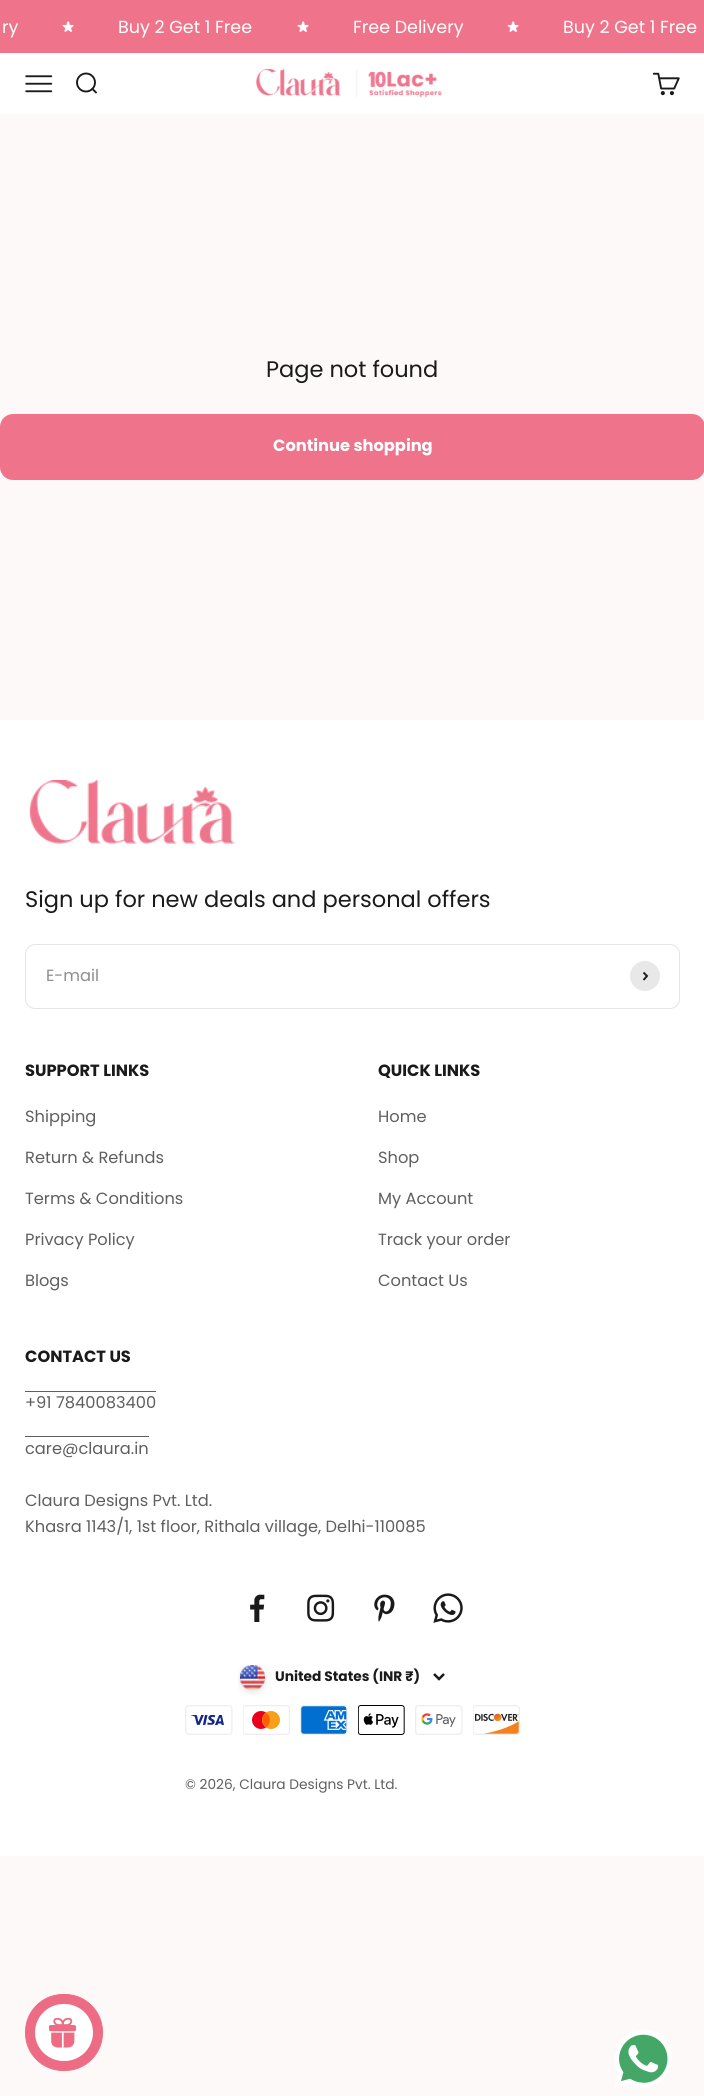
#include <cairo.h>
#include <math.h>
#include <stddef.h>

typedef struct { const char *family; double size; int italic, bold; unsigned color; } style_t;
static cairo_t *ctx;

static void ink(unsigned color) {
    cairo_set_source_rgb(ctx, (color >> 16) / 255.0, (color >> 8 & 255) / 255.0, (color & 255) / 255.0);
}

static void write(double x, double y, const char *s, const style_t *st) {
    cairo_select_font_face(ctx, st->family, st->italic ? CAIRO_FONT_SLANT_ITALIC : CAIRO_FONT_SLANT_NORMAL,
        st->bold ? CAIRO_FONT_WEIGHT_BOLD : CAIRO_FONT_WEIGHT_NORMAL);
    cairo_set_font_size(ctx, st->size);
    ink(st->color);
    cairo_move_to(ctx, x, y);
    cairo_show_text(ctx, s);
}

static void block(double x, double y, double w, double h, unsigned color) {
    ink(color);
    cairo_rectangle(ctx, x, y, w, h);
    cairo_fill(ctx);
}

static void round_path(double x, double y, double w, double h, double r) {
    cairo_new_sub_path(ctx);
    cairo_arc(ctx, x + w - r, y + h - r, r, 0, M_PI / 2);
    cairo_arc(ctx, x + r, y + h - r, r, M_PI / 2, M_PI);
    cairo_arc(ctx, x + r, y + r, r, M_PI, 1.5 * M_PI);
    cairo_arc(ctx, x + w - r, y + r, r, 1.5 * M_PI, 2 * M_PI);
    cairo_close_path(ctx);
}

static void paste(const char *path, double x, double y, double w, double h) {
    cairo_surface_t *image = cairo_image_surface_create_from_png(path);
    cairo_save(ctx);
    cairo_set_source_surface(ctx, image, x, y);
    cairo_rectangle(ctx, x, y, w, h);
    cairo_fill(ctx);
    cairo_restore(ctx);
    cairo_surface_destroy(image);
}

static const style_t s1 = {"Poppins", 17.5, 0, 0, 0xffffff};
static const style_t s2 = {"Poppins", 22.5, 0, 0, 0x1a1a1a};
static const style_t s3 = {"Poppins", 16.25, 0, 1, 0xffffff};
static const style_t s4 = {"Poppins", 16.25, 0, 0, 0x8d8d8d};
static const style_t s5 = {"Poppins", 16.25, 0, 1, 0x1a1a1a};
static const style_t s6 = {"Poppins", 16.25, 0, 0, 0x5f5f5f};
static const style_t s7 = {"Poppins", 13.75, 0, 1, 0x1a1a1a};
static const style_t s8 = {"Poppins", 13.75, 0, 0, 0x5f5f5f};

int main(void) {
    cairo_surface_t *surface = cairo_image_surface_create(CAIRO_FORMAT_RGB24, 704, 2096);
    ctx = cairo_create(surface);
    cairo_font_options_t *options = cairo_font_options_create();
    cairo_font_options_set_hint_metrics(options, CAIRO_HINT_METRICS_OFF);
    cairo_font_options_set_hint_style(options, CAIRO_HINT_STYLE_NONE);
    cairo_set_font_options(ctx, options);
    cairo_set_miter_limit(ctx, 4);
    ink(0xfef9f9);
    cairo_paint(ctx);
    block(0, 0, 704, 53, 0xef748b);
    write(2, 33, "ry", &s1);
    paste("pic1.png", 62, 21, 12, 12);
    write(118, 33, "Buy 2 Get 1 Free", &s1);
    paste("pic1.png", 297, 21, 12, 12);
    write(353, 33, "Free Delivery", &s1);
    paste("pic1.png", 507, 21, 12, 12);
    write(563, 33, "Buy 2 Get 1 Free", &s1);
    block(0, 53, 704, 61, 0xffffff);
    paste("pic2.png", 25, 75, 28, 18);
    cairo_arc(ctx, 86, 82.5, 9, 0, 2 * M_PI);
    ink(0x1a1a1a);
    cairo_set_line_width(ctx, 1.9);
    cairo_stroke(ctx);
    cairo_new_path(ctx);
    cairo_move_to(ctx, 92.5, 89);
    cairo_line_to(ctx, 96, 92.5);
    cairo_set_line_cap(ctx, CAIRO_LINE_CAP_ROUND);
    cairo_set_line_join(ctx, CAIRO_LINE_JOIN_ROUND);
    cairo_stroke(ctx);
    paste("pic3.png", 255, 68, 187, 30);
    paste("pic4.png", 653, 72, 27, 24);
    write(266, 377, "Page not found", &s2);
    ink(0xef748b);
    round_path(0, 414, 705, 66, 13);
    cairo_fill(ctx);
    write(273, 451, "Continue shopping", &s3);
    block(0, 720, 704, 1136, 0xffffff);
    paste("pic5.png", 29, 780, 206, 64);
    write(25, 907, "Sign up for new deals and personal offers", &s2);
    round_path(25.5, 944.5, 654, 64, 9.5);
    ink(0xe4e4e4);
    cairo_set_line_width(ctx, 1);
    cairo_set_line_cap(ctx, CAIRO_LINE_CAP_BUTT);
    cairo_set_line_join(ctx, CAIRO_LINE_JOIN_MITER);
    cairo_stroke(ctx);
    write(46, 981, "E-mail", &s4);
    ink(0xe8e8e8);
    cairo_new_path(ctx);
    cairo_arc(ctx, 645, 976, 15, 0, 2 * M_PI);
    cairo_fill(ctx);
    cairo_new_path(ctx);
    cairo_move_to(ctx, 643.5, 980);
    cairo_line_to(ctx, 647, 976);
    cairo_line_to(ctx, 643.5, 972.5);
    ink(0x1a1a1a);
    cairo_set_line_width(ctx, 1.9);
    cairo_stroke(ctx);
    write(25, 1076, "SUPPORT LINKS", &s5);
    write(25, 1122, "Shipping", &s6);
    write(25, 1163, "Return & Refunds", &s6);
    write(25, 1204, "Terms & Conditions", &s6);
    write(25, 1245, "Privacy Policy", &s6);
    write(25, 1286, "Blogs", &s6);
    write(378, 1076, "QUICK LINKS", &s5);
    write(378, 1122, "Home", &s6);
    write(378, 1163, "Shop", &s6);
    write(378, 1204, "My Account", &s6);
    write(378, 1245, "Track your order", &s6);
    write(378, 1286, "Contact Us", &s6);
    write(25, 1362, "CONTACT US", &s5);
    write(25, 1408, "+91 7840083400", &s6);
    block(25, 1391, 131, 1, 0x5f5f5f);
    write(25, 1454, "care@claura.in", &s6);
    block(25, 1436, 124, 1, 0x5f5f5f);
    write(25, 1506, "Claura Designs Pvt. Ltd.", &s6);
    write(25, 1532, "Khasra 1143/1, 1st floor, Rithala village, Delhi-110085", &s6);
    paste("pic6.png", 250, 1594, 15, 28);
    paste("pic7.png", 307, 1594, 28, 28);
    paste("pic8.png", 374, 1594, 21, 28);
    paste("pic9.png", 433, 1593, 30, 30);
    paste("pic10.png", 238, 1665, 29, 30);
    write(275, 1681, "United States (INR ₹)", &s7);
    cairo_new_path(ctx);
    cairo_move_to(ctx, 434, 1674);
    cairo_line_to(ctx, 439, 1679);
    cairo_line_to(ctx, 444, 1674);
    cairo_set_line_width(ctx, 2.5);
    cairo_stroke(ctx);
    paste("pic11.png", 185, 1705, 48, 30);
    paste("pic12.png", 243, 1705, 47, 30);
    paste("pic13.png", 300, 1705, 48, 30);
    paste("pic14.png", 358, 1705, 47, 30);
    paste("pic15.png", 415, 1705, 48, 30);
    paste("pic16.png", 473, 1705, 47, 30);
    write(185, 1789, "© 2026, Claura Designs Pvt. Ltd.", &s8);
    ink(0xed6c84);
    round_path(25.5, 1994.5, 77, 76, 37.5);
    cairo_fill_preserve(ctx);
    cairo_set_line_width(ctx, 1);
    cairo_stroke(ctx);
    ink(0xffffff);
    round_path(35, 2004, 58, 57, 28.5);
    cairo_fill(ctx);
    paste("pic17.png", 49, 2018, 27, 30);
    paste("pic18.png", 614, 2030, 58, 58);
    cairo_surface_write_to_png(surface, "screenshot.png");
    cairo_font_options_destroy(options);
    cairo_destroy(ctx);
    cairo_surface_destroy(surface);
    return 0;
}
